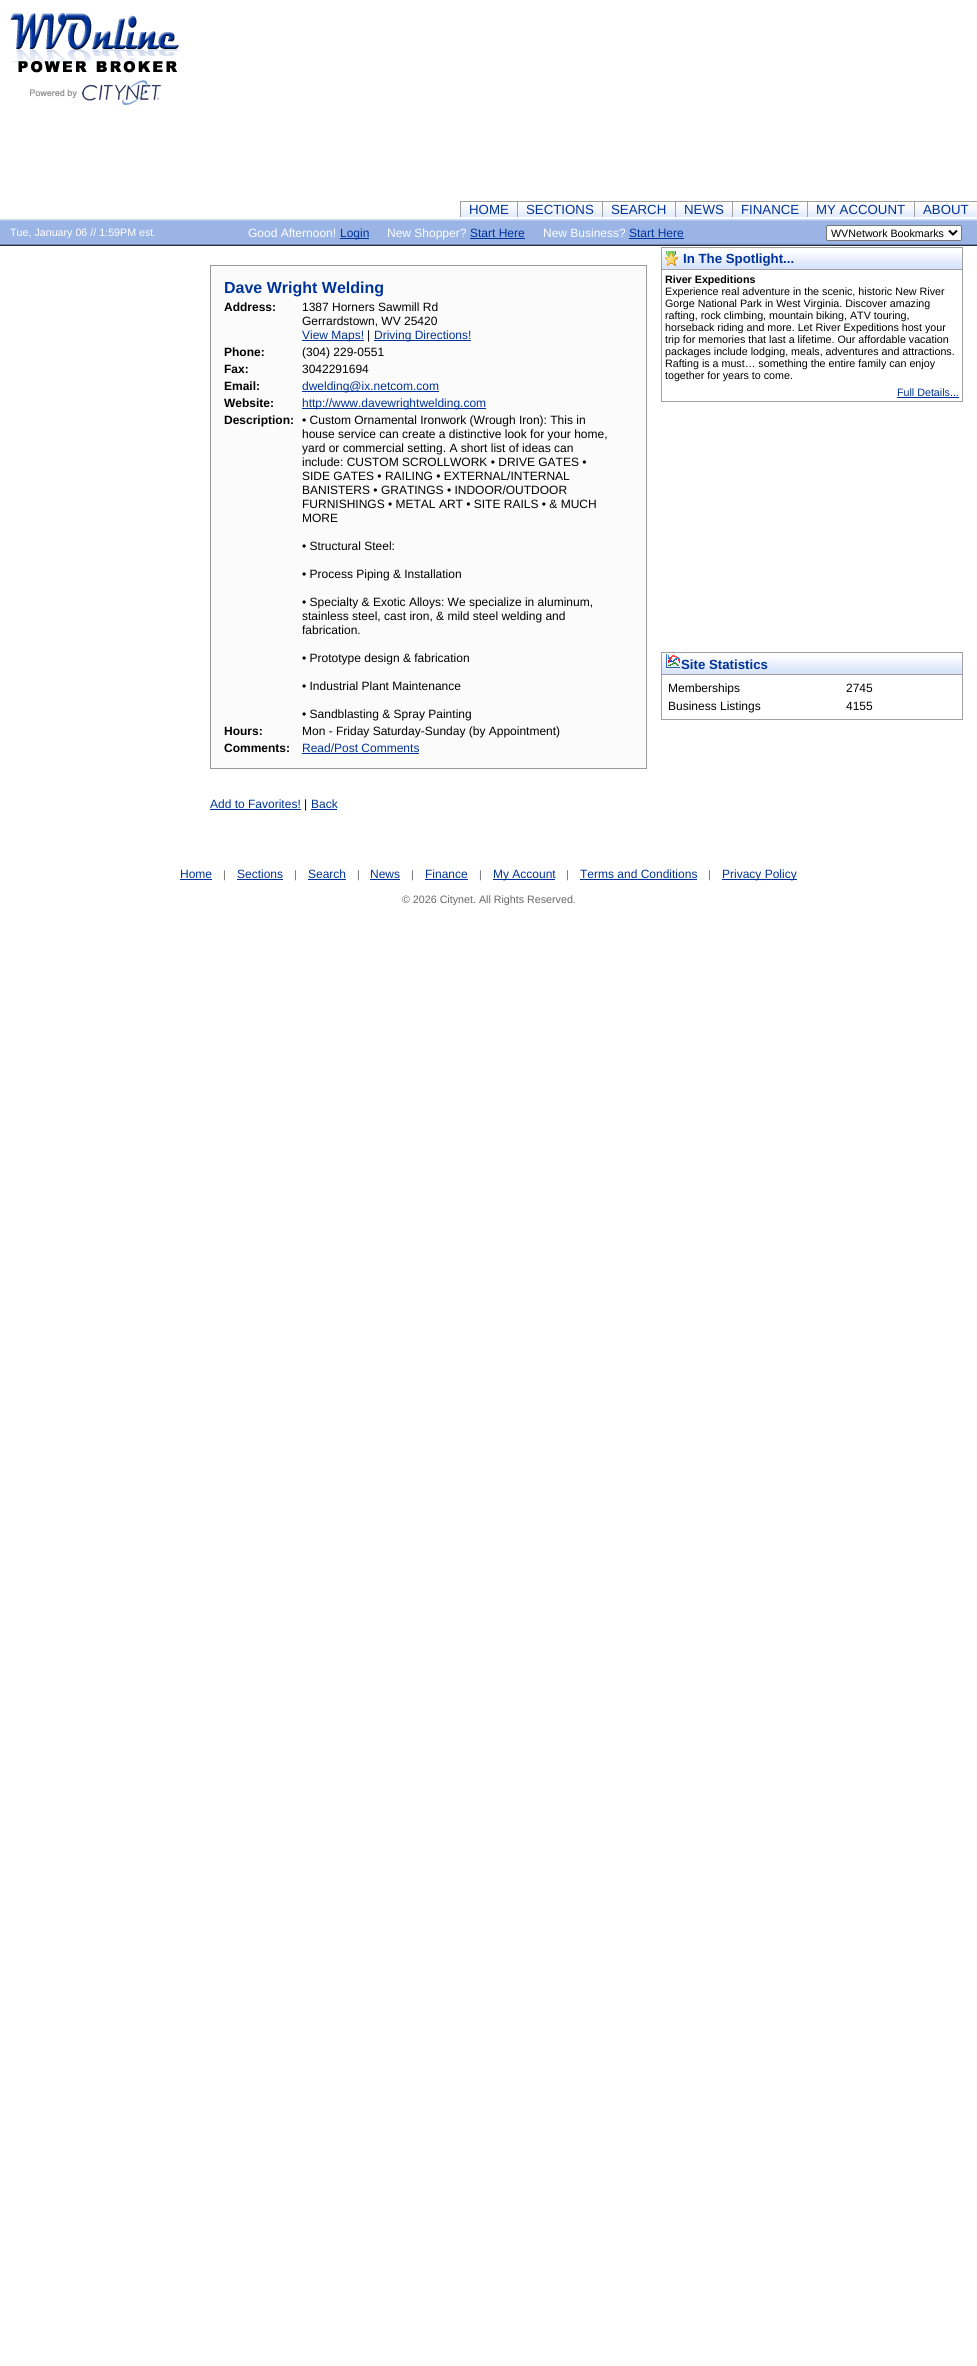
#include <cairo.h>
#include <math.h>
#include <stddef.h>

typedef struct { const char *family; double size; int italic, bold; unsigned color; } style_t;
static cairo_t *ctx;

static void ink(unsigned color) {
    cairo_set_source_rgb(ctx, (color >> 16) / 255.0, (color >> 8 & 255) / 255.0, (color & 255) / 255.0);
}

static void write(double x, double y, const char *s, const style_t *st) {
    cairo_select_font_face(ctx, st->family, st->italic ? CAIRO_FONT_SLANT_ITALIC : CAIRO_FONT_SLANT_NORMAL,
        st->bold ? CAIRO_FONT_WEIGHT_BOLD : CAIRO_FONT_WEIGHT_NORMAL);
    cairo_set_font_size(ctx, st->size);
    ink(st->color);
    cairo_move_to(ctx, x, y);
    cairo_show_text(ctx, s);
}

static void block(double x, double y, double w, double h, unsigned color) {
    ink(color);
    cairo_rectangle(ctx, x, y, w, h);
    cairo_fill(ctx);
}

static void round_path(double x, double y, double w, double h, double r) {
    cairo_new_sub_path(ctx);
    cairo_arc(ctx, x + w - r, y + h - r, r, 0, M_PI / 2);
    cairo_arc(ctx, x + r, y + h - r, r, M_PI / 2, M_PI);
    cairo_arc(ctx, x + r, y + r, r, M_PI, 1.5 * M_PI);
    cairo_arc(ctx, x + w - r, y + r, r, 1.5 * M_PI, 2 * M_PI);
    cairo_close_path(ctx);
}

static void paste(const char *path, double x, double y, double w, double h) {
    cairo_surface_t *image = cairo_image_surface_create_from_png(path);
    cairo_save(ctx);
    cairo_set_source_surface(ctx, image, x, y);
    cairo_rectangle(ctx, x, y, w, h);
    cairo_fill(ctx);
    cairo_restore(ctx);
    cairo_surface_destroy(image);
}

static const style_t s1 = {"Liberation Sans", 13.25, 0, 0, 0x003399};
static const style_t s2 = {"Liberation Sans", 10.7, 0, 0, 0xffffff};
static const style_t s3 = {"Liberation Sans", 12, 0, 0, 0xffffff};
static const style_t s4 = {"Liberation Sans", 12, 0, 0, 0x003399};
static const style_t s5 = {"Liberation Sans", 10.7, 0, 0, 0x000000};
static const style_t s6 = {"Liberation Sans", 16, 0, 1, 0x003399};
static const style_t s7 = {"Liberation Sans", 12, 0, 1, 0x000000};
static const style_t s8 = {"Liberation Sans", 12, 0, 0, 0x000000};
static const style_t s9 = {"Liberation Sans", 13.25, 0, 1, 0x003399};
static const style_t s10 = {"Liberation Sans", 10.7, 0, 1, 0x000000};
static const style_t s11 = {"Liberation Sans", 10.7, 0, 0, 0x003399};
static const style_t s12 = {"Liberation Sans", 10.7, 0, 0, 0x666666};

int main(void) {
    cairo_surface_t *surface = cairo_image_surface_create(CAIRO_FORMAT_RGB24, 977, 2366);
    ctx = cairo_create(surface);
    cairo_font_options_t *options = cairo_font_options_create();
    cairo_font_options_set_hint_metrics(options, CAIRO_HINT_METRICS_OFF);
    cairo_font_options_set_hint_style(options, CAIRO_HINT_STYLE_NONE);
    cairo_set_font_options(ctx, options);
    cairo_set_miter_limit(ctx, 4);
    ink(0xffffff);
    cairo_paint(ctx);
    paste("pic1.png", 10, 13, 169, 92);
    paste("pic2.png", 461, 202, 56, 15);
    write(469, 214, "HOME", &s1);
    block(460, 201, 517, 1, 0xa1a1a1);
    block(460, 201, 1, 16, 0xa1a1a1);
    paste("pic3.png", 518, 202, 84, 15);
    write(526, 214, "SECTIONS", &s1);
    block(517, 201, 1, 16, 0xa1a1a1);
    paste("pic4.png", 603, 202, 72, 15);
    write(611, 214, "SEARCH", &s1);
    block(602, 201, 1, 16, 0xa1a1a1);
    paste("pic2.png", 676, 202, 56, 15);
    write(684, 214, "NEWS", &s1);
    block(675, 201, 1, 16, 0xa1a1a1);
    paste("pic5.png", 733, 202, 74, 15);
    write(741, 214, "FINANCE", &s1);
    block(732, 201, 1, 16, 0xa1a1a1);
    paste("pic6.png", 808, 202, 106, 15);
    write(816, 214, "MY ACCOUNT", &s1);
    block(807, 201, 1, 16, 0xa1a1a1);
    paste("pic7.png", 915, 202, 62, 15);
    write(923, 214, "ABOUT", &s1);
    block(914, 201, 1, 16, 0xa1a1a1);
    paste("pic8.png", 0, 219, 977, 27);
    write(10, 236, "Tue, January 06 // 1:59PM est.", &s2);
    write(248, 237, "Good Afternoon!", &s3);
    block(340, 238, 29, 1, 0x003399);
    write(340, 237, "Login", &s4);
    write(387, 237, "New Shopper?", &s3);
    write(470, 237, "Start Here", &s4);
    block(470, 238, 55, 1, 0x003399);
    write(543, 237, "New Business?", &s3);
    write(629, 237, "Start Here", &s4);
    block(629, 238, 55, 1, 0x003399);
    ink(0xffffff);
    round_path(826.5, 225.5, 135, 15, 1.5);
    cairo_fill_preserve(ctx);
    ink(0x767676);
    cairo_set_line_width(ctx, 1);
    cairo_stroke(ctx);
    cairo_new_path(ctx);
    cairo_move_to(ctx, 949, 230.5);
    cairo_line_to(ctx, 953, 234.5);
    cairo_line_to(ctx, 957, 230.5);
    ink(0x000000);
    cairo_set_line_width(ctx, 2);
    cairo_stroke(ctx);
    write(831, 237, "WVNetwork Bookmarks", &s5);
    ink(0xfbfbfb);
    cairo_rectangle(ctx, 210.5, 265.5, 436, 503);
    cairo_fill_preserve(ctx);
    ink(0x999999);
    cairo_set_line_width(ctx, 1);
    cairo_stroke(ctx);
    write(224, 293, "Dave Wright Welding", &s6);
    write(224, 311, "Address:", &s7);
    write(302, 311, "1387 Horners Sawmill Rd", &s8);
    write(302, 325, "Gerrardstown, WV 25420", &s8);
    block(302, 340, 62, 1, 0x003399);
    write(302, 339, "View Maps!", &s4);
    write(367, 339, "|", &s8);
    block(374, 340, 97, 1, 0x003399);
    write(374, 339, "Driving Directions!", &s4);
    write(224, 356, "Phone:", &s7);
    write(302, 356, "(304) 229-0551", &s8);
    write(224, 373, "Fax:", &s7);
    write(302, 373, "3042291694", &s8);
    write(224, 390, "Email:", &s7);
    block(302, 391, 137, 1, 0x003399);
    write(302, 390, "dwelding@ix.netcom.com", &s4);
    write(224, 407, "Website:", &s7);
    block(302, 408, 184, 1, 0x003399);
    write(302, 407, "http://www.davewrightwelding.com", &s4);
    write(224, 424, "Description:", &s7);
    write(302, 424, "• Custom Ornamental Ironwork (Wrough Iron): This in", &s8);
    write(302, 438, "house service can create a distinctive look for your home,", &s8);
    write(302, 452, "yard or commercial setting. A short list of ideas can", &s8);
    write(302, 466, "include: CUSTOM SCROLLWORK • DRIVE GATES •", &s8);
    write(302, 480, "SIDE GATES • RAILING • EXTERNAL/INTERNAL", &s8);
    write(302, 494, "BANISTERS • GRATINGS • INDOOR/OUTDOOR", &s8);
    write(302, 508, "FURNISHINGS • METAL ART • SITE RAILS • & MUCH", &s8);
    write(302, 522, "MORE", &s8);
    write(302, 550, "• Structural Steel:", &s8);
    write(302, 578, "• Process Piping & Installation", &s8);
    write(302, 606, "• Specialty & Exotic Alloys: We specialize in aluminum,", &s8);
    write(302, 620, "stainless steel, cast iron, & mild steel welding and", &s8);
    write(302, 634, "fabrication.", &s8);
    write(302, 662, "• Prototype design & fabrication", &s8);
    write(302, 690, "• Industrial Plant Maintenance", &s8);
    write(302, 718, "• Sandblasting & Spray Painting", &s8);
    write(224, 735, "Hours:", &s7);
    write(302, 735, "Mon - Friday Saturday-Sunday (by Appointment)", &s8);
    write(224, 752, "Comments:", &s7);
    write(302, 752, "Read/Post Comments", &s4);
    block(302, 753, 117, 1, 0x003399);
    write(210, 808, "Add to Favorites!", &s4);
    block(210, 809, 91, 1, 0x003399);
    write(304, 808, "|", &s8);
    write(311, 808, "Back", &s4);
    block(311, 809, 26, 1, 0x003399);
    cairo_rectangle(ctx, 661.5, 247.5, 301, 154);
    ink(0xa1a1a1);
    cairo_stroke(ctx);
    paste("pic9.png", 662, 252, 300, 17);
    block(662, 269, 300, 1, 0xa1a1a1);
    paste("pic10.png", 665, 251, 13, 15);
    write(683, 263, "In The Spotlight...", &s9);
    write(665, 283, "River Expeditions", &s10);
    write(665, 295, "Experience real adventure in the scenic, historic New River", &s5);
    write(665, 307, "Gorge National Park in West Virginia. Discover amazing", &s5);
    write(665, 319, "rafting, rock climbing, mountain biking, ATV touring,", &s5);
    write(665, 331, "horseback riding and more. Let River Expeditions host your", &s5);
    write(665, 343, "trip for memories that last a lifetime. Our affordable vacation", &s5);
    write(665, 355, "packages include lodging, meals, adventures and attractions.", &s5);
    write(665, 367, "Rafting is a must… something the entire family can enjoy", &s5);
    write(665, 379, "together for years to come.", &s5);
    write(897, 396, "Full Details...", &s11);
    block(897, 397, 62, 1, 0x003399);
    cairo_rectangle(ctx, 661.5, 652.5, 301, 67);
    ink(0xa1a1a1);
    cairo_stroke(ctx);
    paste("pic9.png", 662, 657, 300, 17);
    block(662, 674, 300, 1, 0xa1a1a1);
    paste("pic11.png", 666, 654, 14, 14);
    write(681, 669, "Site Statistics", &s9);
    write(668, 692, "Memberships", &s8);
    write(846, 692, "2745", &s8);
    write(668, 710, "Business Listings", &s8);
    write(846, 710, "4155", &s8);
    write(180, 878, "Home", &s4);
    block(180, 879, 32, 1, 0x003399);
    write(223, 878, "|", &s12);
    write(237, 878, "Sections", &s4);
    block(237, 879, 46, 1, 0x003399);
    write(294, 878, "|", &s12);
    write(308, 878, "Search", &s4);
    block(308, 879, 38, 1, 0x003399);
    write(357, 878, "|", &s12);
    write(370, 878, "News", &s4);
    block(370, 879, 30, 1, 0x003399);
    write(411, 878, "|", &s12);
    write(425, 878, "Finance", &s4);
    block(425, 879, 43, 1, 0x003399);
    write(479, 878, "|", &s12);
    block(493, 879, 62, 1, 0x003399);
    write(493, 878, "My Account", &s4);
    write(566, 878, "|", &s12);
    write(580, 878, "Terms and Conditions", &s4);
    block(580, 879, 117, 1, 0x003399);
    write(708, 878, "|", &s12);
    block(722, 879, 75, 1, 0x003399);
    write(722, 878, "Privacy Policy", &s4);
    write(402, 903, "© 2026 Citynet. All Rights Reserved.", &s12);
    cairo_surface_write_to_png(surface, "screenshot.png");
    cairo_font_options_destroy(options);
    cairo_destroy(ctx);
    cairo_surface_destroy(surface);
    return 0;
}
